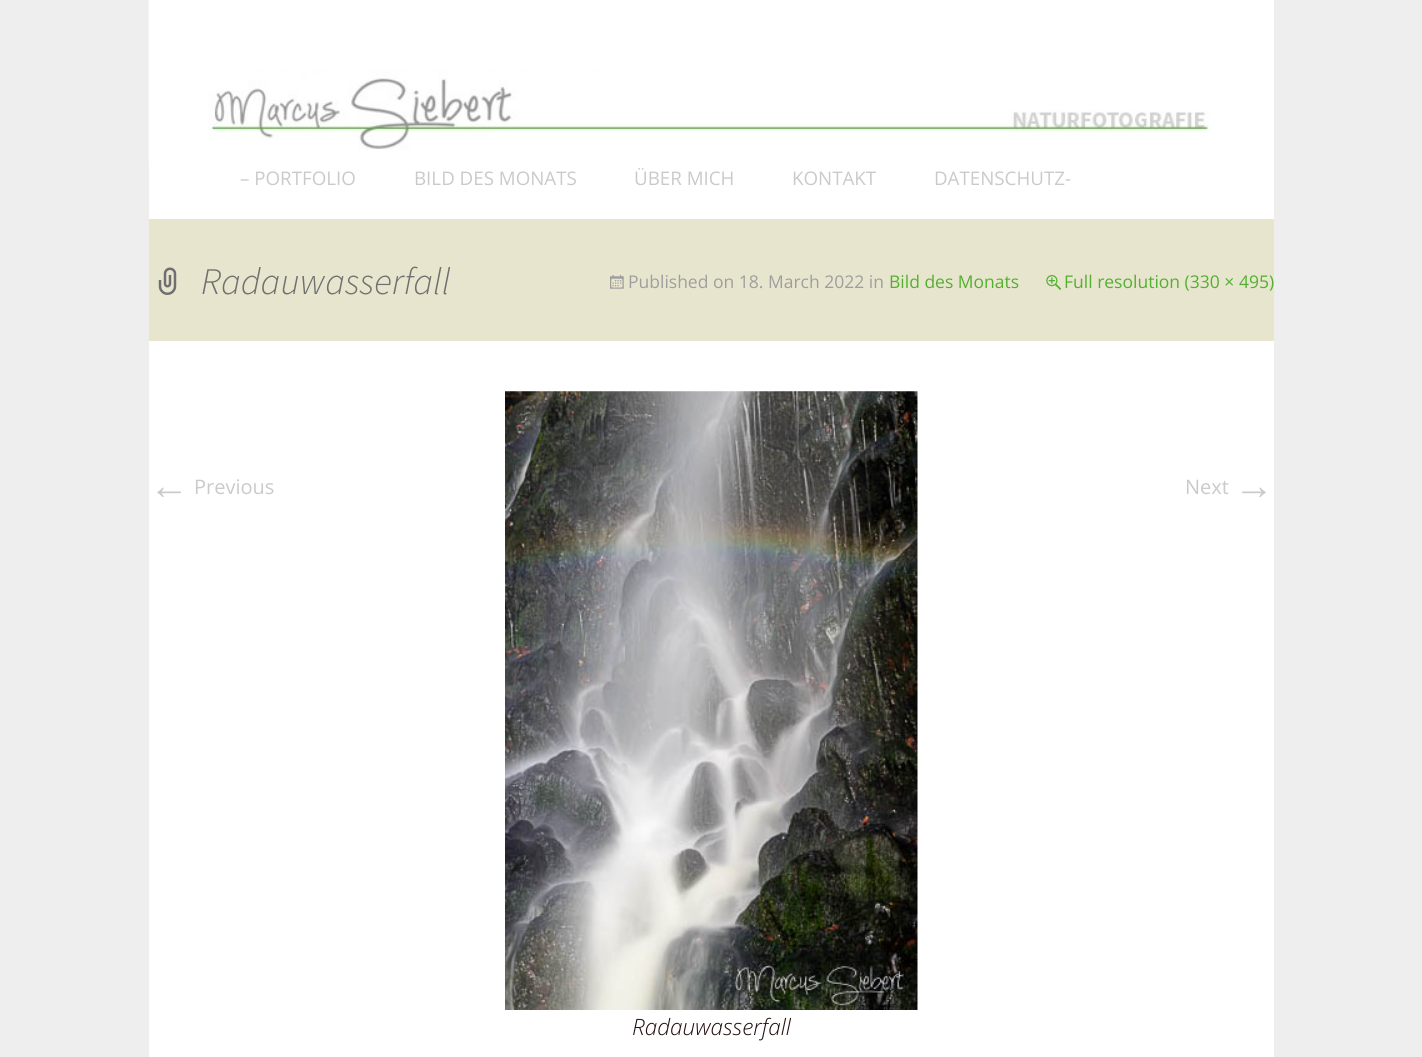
#include <cairo.h>
#include <math.h>
#include <stddef.h>

typedef struct { const char *family; double size; int italic, bold; unsigned color; } style_t;
static cairo_t *ctx;

static void ink(unsigned color) {
    cairo_set_source_rgb(ctx, (color >> 16) / 255.0, (color >> 8 & 255) / 255.0, (color & 255) / 255.0);
}

static void write(double x, double y, const char *s, const style_t *st) {
    cairo_select_font_face(ctx, st->family, st->italic ? CAIRO_FONT_SLANT_ITALIC : CAIRO_FONT_SLANT_NORMAL,
        st->bold ? CAIRO_FONT_WEIGHT_BOLD : CAIRO_FONT_WEIGHT_NORMAL);
    cairo_set_font_size(ctx, st->size);
    ink(st->color);
    cairo_move_to(ctx, x, y);
    cairo_show_text(ctx, s);
}

static void block(double x, double y, double w, double h, unsigned color) {
    ink(color);
    cairo_rectangle(ctx, x, y, w, h);
    cairo_fill(ctx);
}

static void paste(const char *path, double x, double y, double w, double h) {
    cairo_surface_t *image = cairo_image_surface_create_from_png(path);
    cairo_save(ctx);
    cairo_set_source_surface(ctx, image, x, y);
    cairo_rectangle(ctx, x, y, w, h);
    cairo_fill(ctx);
    cairo_restore(ctx);
    cairo_surface_destroy(image);
}

static const style_t s1 = {"Open Sans", 18.75, 0, 0, 0xcacaca};
static const style_t s2 = {"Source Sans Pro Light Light", 37.5, 1, 0, 0x6f6f6f};
static const style_t s3 = {"Open Sans", 17.5, 0, 0, 0x9e9e9e};
static const style_t s4 = {"Open Sans", 17.5, 0, 0, 0x53af2f};
static const style_t s5 = {"Liberation Sans", 40, 0, 0, 0xcacaca};
static const style_t s6 = {"Open Sans", 20, 0, 0, 0xcacaca};
static const style_t s7 = {"Open Sans Light", 22.5, 1, 0, 0x220e10};

int main(void) {
    cairo_surface_t *surface = cairo_image_surface_create(CAIRO_FORMAT_RGB24, 1422, 1057);
    ctx = cairo_create(surface);
    cairo_font_options_t *options = cairo_font_options_create();
    cairo_font_options_set_hint_metrics(options, CAIRO_HINT_METRICS_OFF);
    cairo_font_options_set_hint_style(options, CAIRO_HINT_STYLE_NONE);
    cairo_set_font_options(ctx, options);
    cairo_set_miter_limit(ctx, 4);
    ink(0xeeeeee);
    cairo_paint(ctx);
    block(149, 0, 1125, 219, 0xffffff);
    paste("pic1.png", 148, 0, 1062, 162);
    write(240, 185, "– PORTFOLIO", &s1);
    write(414, 185, "BILD DES MONATS", &s1);
    write(634, 185, "ÜBER MICH", &s1);
    write(792, 185, "KONTAKT", &s1);
    write(934, 185, "DATENSCHUTZ-", &s1);
    block(149, 219, 1125, 122, 0xe8e5ce);
    paste("pic2.png", 158, 267, 19, 28);
    write(201, 294, "Radauwasserfall", &s2);
    paste("pic3.png", 610, 275, 14, 14);
    write(628, 288, "Published on 18. March 2022 in", &s3);
    write(889, 288, "Bild des Monats", &s4);
    paste("pic4.png", 1046, 275, 16, 15);
    write(1064, 288, "Full resolution (330 × 495)", &s4);
    block(149, 341, 1125, 716, 0xffffff);
    write(149, 499, "←", &s5);
    write(194, 494, "Previous", &s6);
    write(1185, 494, "Next", &s6);
    write(1234, 499, "→", &s5);
    paste("pic5.png", 505, 391, 413, 619);
    write(632, 1035, "Radauwasserfall", &s7);
    cairo_surface_write_to_png(surface, "screenshot.png");
    cairo_font_options_destroy(options);
    cairo_destroy(ctx);
    cairo_surface_destroy(surface);
    return 0;
}
